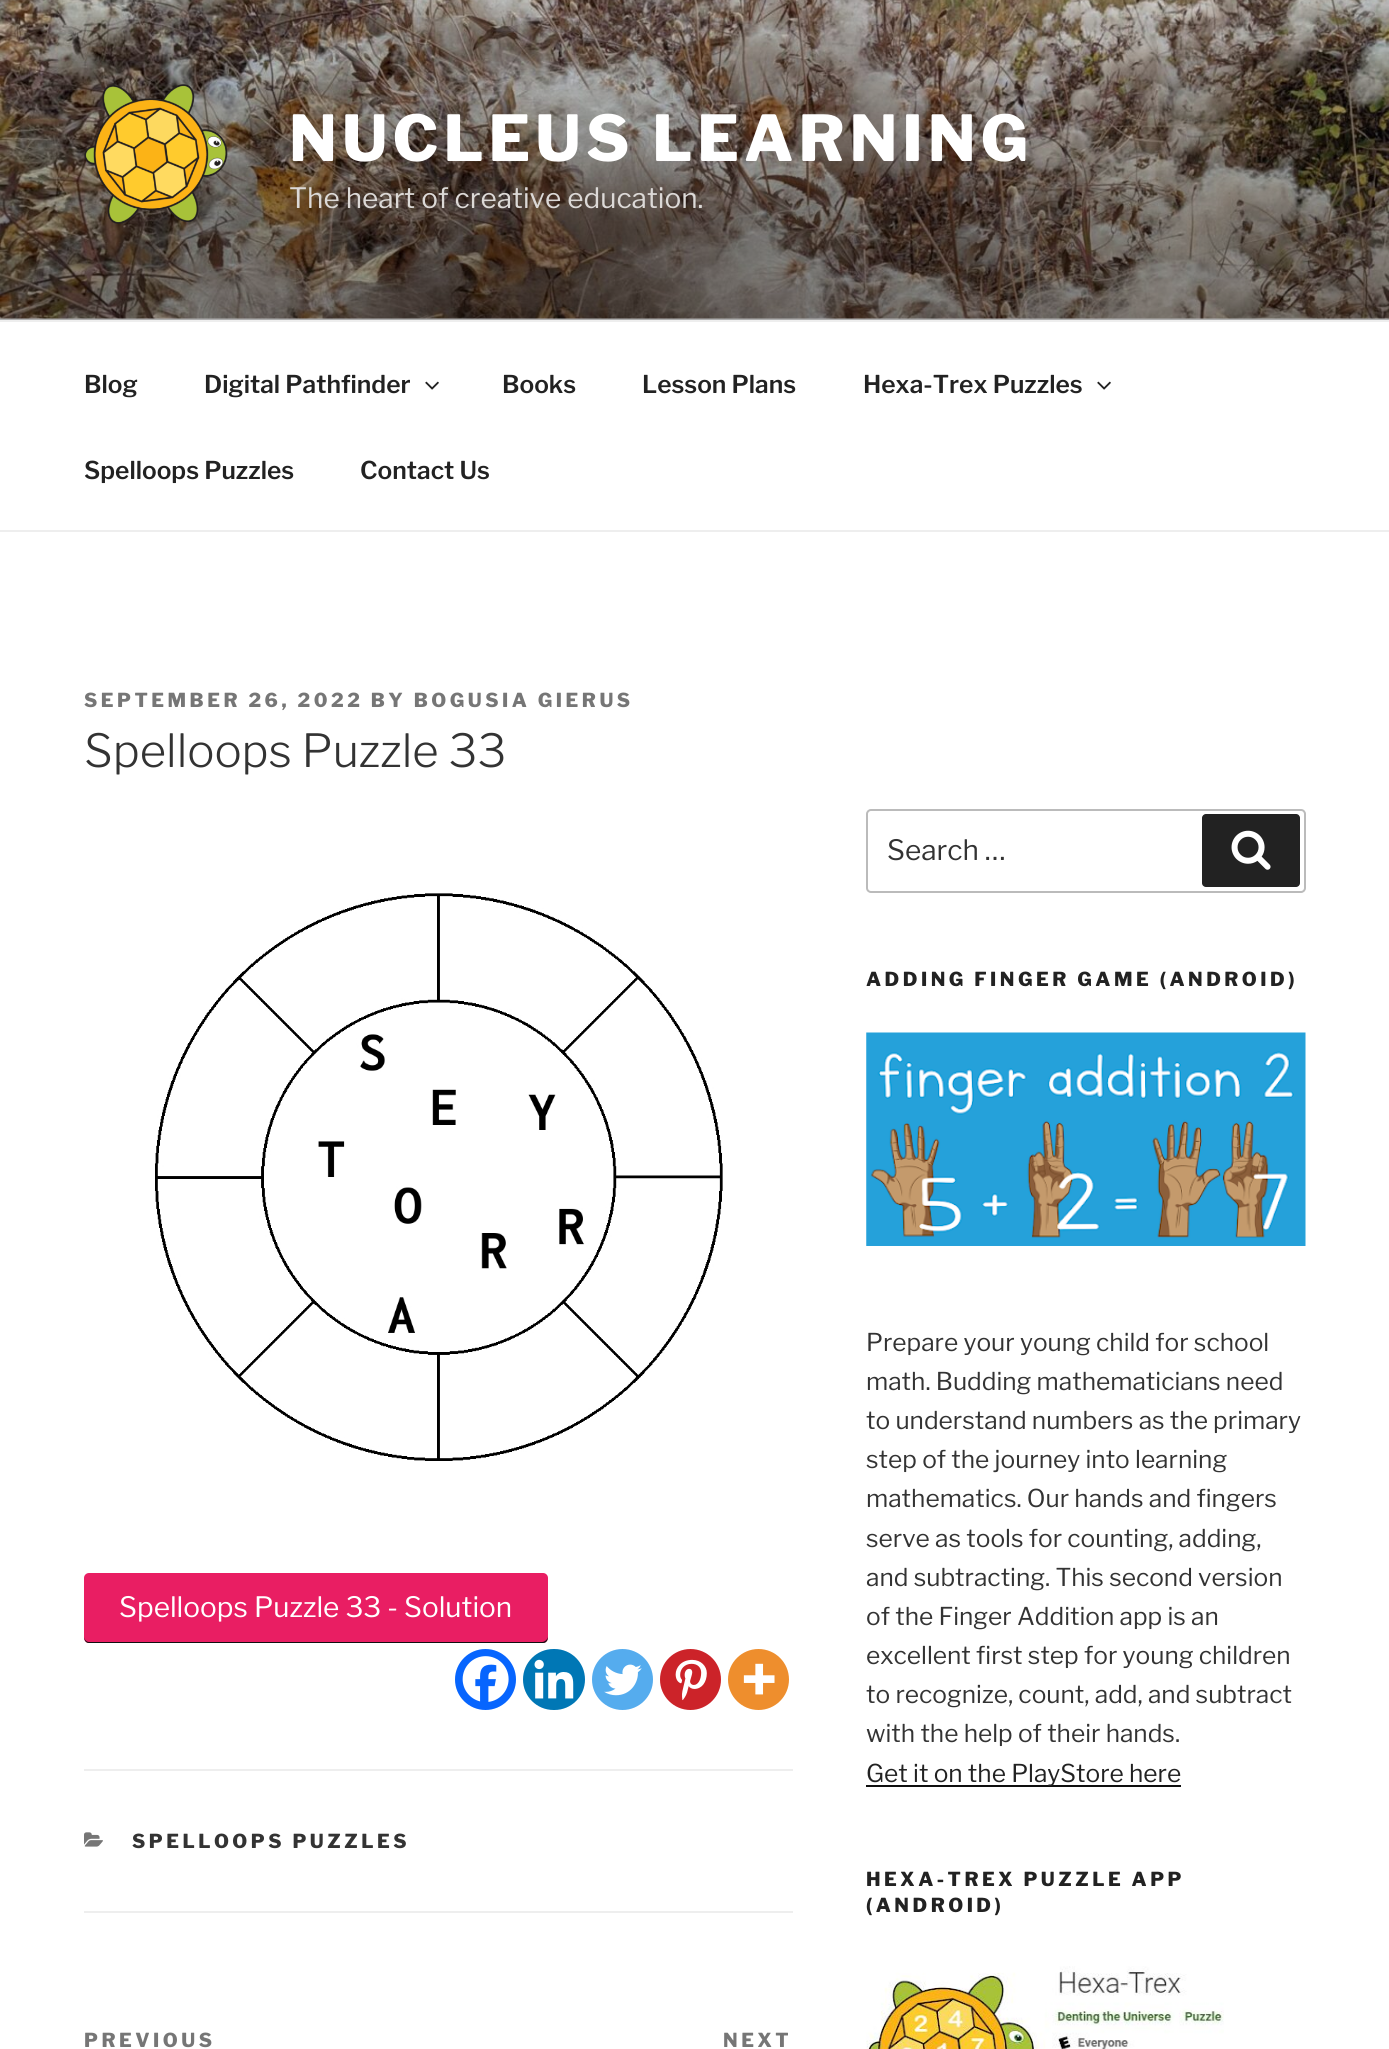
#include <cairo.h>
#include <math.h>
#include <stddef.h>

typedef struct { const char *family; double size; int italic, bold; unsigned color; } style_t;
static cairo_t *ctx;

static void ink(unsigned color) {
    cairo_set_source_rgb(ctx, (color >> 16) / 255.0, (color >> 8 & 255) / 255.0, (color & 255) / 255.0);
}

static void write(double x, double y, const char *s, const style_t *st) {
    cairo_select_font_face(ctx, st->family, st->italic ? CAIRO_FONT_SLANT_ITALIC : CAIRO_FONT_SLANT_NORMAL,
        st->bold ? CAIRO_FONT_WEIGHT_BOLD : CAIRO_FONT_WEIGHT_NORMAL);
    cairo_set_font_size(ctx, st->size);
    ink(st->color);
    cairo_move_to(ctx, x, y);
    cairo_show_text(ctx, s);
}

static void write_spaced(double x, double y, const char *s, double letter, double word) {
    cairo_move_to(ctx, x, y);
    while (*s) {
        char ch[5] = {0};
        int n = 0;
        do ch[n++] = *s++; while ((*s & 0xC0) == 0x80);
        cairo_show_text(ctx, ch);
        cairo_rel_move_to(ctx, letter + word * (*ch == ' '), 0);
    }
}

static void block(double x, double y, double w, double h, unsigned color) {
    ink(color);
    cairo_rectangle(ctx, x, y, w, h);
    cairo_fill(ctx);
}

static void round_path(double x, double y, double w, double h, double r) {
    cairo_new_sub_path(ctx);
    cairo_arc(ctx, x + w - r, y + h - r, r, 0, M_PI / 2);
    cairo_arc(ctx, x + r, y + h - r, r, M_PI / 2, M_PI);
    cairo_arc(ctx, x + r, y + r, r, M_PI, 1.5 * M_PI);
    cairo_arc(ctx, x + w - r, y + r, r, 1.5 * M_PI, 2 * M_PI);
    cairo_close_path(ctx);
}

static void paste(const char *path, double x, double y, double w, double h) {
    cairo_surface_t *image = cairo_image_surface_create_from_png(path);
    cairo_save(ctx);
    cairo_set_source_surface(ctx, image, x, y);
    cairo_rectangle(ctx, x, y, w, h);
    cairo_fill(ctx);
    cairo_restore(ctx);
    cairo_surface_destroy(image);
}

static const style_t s1 = {"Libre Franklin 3 Thin", 28, 0, 0, 0xdcd9d7};
static const style_t s2 = {"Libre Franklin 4 Thin", 24.5, 0, 0, 0x222222};
static const style_t s3 = {"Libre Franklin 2 Thin", 45.5, 0, 0, 0x333333};
static const style_t s4 = {"Libre Franklin 3 Thin", 28, 0, 0, 0xffffff};
static const style_t s5 = {"Libre Franklin 3 Thin", 28, 0, 0, 0x333333};
static const style_t s6 = {"Libre Franklin 3 Thin", 24.5, 0, 0, 0x333333};
static const style_t s7 = {"Libre Franklin 3 Thin", 24.5, 0, 0, 0x222222};

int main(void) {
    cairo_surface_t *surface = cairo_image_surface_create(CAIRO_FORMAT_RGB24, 1389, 2049);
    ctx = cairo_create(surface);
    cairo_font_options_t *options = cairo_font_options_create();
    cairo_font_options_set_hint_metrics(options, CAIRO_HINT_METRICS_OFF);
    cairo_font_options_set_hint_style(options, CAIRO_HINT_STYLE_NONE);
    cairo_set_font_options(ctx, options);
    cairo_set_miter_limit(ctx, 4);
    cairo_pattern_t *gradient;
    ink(0xffffff);
    cairo_paint(ctx);
    block(0, 318, 1389, 2, 0xfafafa);
    paste("pic1.png", 0, 0, 1389, 319);
    gradient = cairo_pattern_create_linear(695, 0, 695, 320);
    cairo_pattern_add_color_stop_rgba(gradient, 0, 0, 0, 0, 0);
    cairo_pattern_add_color_stop_rgba(gradient, 0.75, 0, 0, 0, 0.3);
    cairo_pattern_add_color_stop_rgba(gradient, 1, 0, 0, 0, 0.3);
    cairo_set_source(ctx, gradient);
    cairo_pattern_destroy(gradient);
    cairo_rectangle(ctx, 0, 17, 1389, 303);
    cairo_fill(ctx);
    paste("pic2.png", 84, 84, 144, 140);
    cairo_select_font_face(ctx, "Libre Franklin Thin", CAIRO_FONT_SLANT_NORMAL, CAIRO_FONT_WEIGHT_NORMAL);
    cairo_set_font_size(ctx, 63);
    ink(0xffffff);
    write_spaced(289, 161, "NUCLEUS LEARNING", 5, 0);
    write(289, 208, "The heart of creative education.", &s1);
    block(0, 320, 1389, 2, 0xeeeeee);
    block(0, 530, 1389, 2, 0xeeeeee);
    write(84, 393, "Blog", &s2);
    write(204, 393, "Digital Pathfinder", &s2);
    paste("pic3.png", 425, 381, 14, 9);
    write(502, 393, "Books", &s2);
    write(642, 393, "Lesson Plans", &s2);
    write(863, 393, "Hexa-Trex Puzzles", &s2);
    paste("pic3.png", 1097, 381, 14, 9);
    write(84, 479, "Spelloops Puzzles", &s2);
    write(360, 479, "Contact Us", &s2);
    cairo_select_font_face(ctx, "Libre Franklin Thin", CAIRO_FONT_SLANT_NORMAL, CAIRO_FONT_WEIGHT_NORMAL);
    cairo_set_font_size(ctx, 19.25);
    ink(0x767676);
    write_spaced(84, 707, "SEPTEMBER 26, 2022 BY BOGUSIA GIERUS", 3.5, 0);
    write(84, 767, "Spelloops Puzzle 33", &s3);
    paste("pic4.png", 155, 893, 568, 568);
    ink(0xe91e63);
    round_path(84, 1573, 464, 70, 5);
    cairo_fill(ctx);
    ink(0x0f0f0f);
    cairo_new_path(ctx);
    cairo_move_to(ctx, 84, 1636);
    cairo_curve_to(ctx, 84, 1639, 85, 1643, 89, 1643);
    cairo_line_to(ctx, 543, 1643);
    cairo_curve_to(ctx, 547, 1643, 548, 1639, 548, 1636);
    cairo_curve_to(ctx, 548, 1639, 545, 1642, 542, 1642);
    cairo_line_to(ctx, 89, 1642);
    cairo_curve_to(ctx, 86, 1642, 84, 1639, 84, 1636);
    cairo_close_path(ctx);
    cairo_fill(ctx);
    write(119, 1617, "Spelloops Puzzle 33 - Solution", &s4);
    ink(0x0765fe);
    cairo_new_path(ctx);
    cairo_arc(ctx, 485.5, 1679.5, 30.5, 0, 2 * M_PI);
    cairo_fill(ctx);
    paste("pic5.png", 462, 1656, 47, 46);
    ink(0x0077b5);
    round_path(523, 1649, 62, 61, 30.5);
    cairo_fill(ctx);
    paste("pic6.png", 534, 1659, 40, 40);
    ink(0x55acee);
    cairo_arc(ctx, 622.5, 1679.5, 30.5, 0, 2 * M_PI);
    cairo_fill(ctx);
    paste("pic7.png", 604, 1664, 38, 32);
    ink(0xcc2329);
    cairo_arc(ctx, 690.5, 1679.5, 30.5, 0, 2 * M_PI);
    cairo_fill(ctx);
    paste("pic8.png", 675, 1659, 32, 42);
    ink(0xee8e2d);
    cairo_arc(ctx, 758.5, 1679.5, 30.5, 0, 2 * M_PI);
    cairo_fill(ctx);
    paste("pic9.png", 743, 1663, 32, 32);
    block(84, 1769, 709, 2, 0xeeeeee);
    block(84, 1911, 709, 2, 0xeeeeee);
    paste("pic10.png", 84, 1832, 19, 15);
    cairo_select_font_face(ctx, "Libre Franklin Thin", CAIRO_FONT_SLANT_NORMAL, CAIRO_FONT_WEIGHT_NORMAL);
    cairo_set_font_size(ctx, 19.25);
    ink(0x333333);
    write_spaced(132, 1848, "SPELLOOPS PUZZLES", 3.5, 0);
    ink(0x767676);
    write_spaced(84, 2047, "PREVIOUS", 3.5, 0);
    write_spaced(723, 2047, "NEXT", 3.5, 0);
    round_path(867, 810, 438, 82, 4);
    ink(0xbbbbbb);
    cairo_stroke(ctx);
    write(887, 860, "Search …", &s5);
    ink(0x222222);
    round_path(1202, 814, 98, 73, 4);
    cairo_fill(ctx);
    paste("pic11.png", 1231, 830, 40, 40);
    cairo_select_font_face(ctx, "Libre Franklin Thin", CAIRO_FONT_SLANT_NORMAL, CAIRO_FONT_WEIGHT_NORMAL);
    cairo_set_font_size(ctx, 19.25);
    write_spaced(866, 986, "ADDING FINGER GAME (ANDROID)", 3.5, 0);
    paste("pic12.png", 866, 1032, 440, 214);
    write(866, 1351, "Prepare your young child for school", &s6);
    write(866, 1390, "math. Budding mathematicians need", &s6);
    write(866, 1429, "to understand numbers as the primary", &s6);
    write(866, 1468, "step of the journey into learning", &s6);
    write(866, 1507, "mathematics. Our hands and fingers", &s6);
    write(866, 1547, "serve as tools for counting, adding,", &s6);
    write(866, 1586, "and subtracting. This second version", &s6);
    write(866, 1625, "of the Finger Addition app is an", &s6);
    write(866, 1664, "excellent first step for young children", &s6);
    write(866, 1703, "to recognize, count, add, and subtract", &s6);
    write(866, 1742, "with the help of their hands.", &s6);
    block(866, 1785, 315, 2, 0x0f0f0f);
    write(866, 1782, "Get it on the PlayStore here", &s7);
    cairo_select_font_face(ctx, "Libre Franklin Thin", CAIRO_FONT_SLANT_NORMAL, CAIRO_FONT_WEIGHT_NORMAL);
    cairo_set_font_size(ctx, 19.25);
    write_spaced(866, 1886, "HEXA-TREX PUZZLE APP", 3.5, 0);
    write_spaced(866, 1912, "(ANDROID)", 3.5, 0);
    paste("pic13.png", 866, 1966, 358, 83);
    cairo_surface_write_to_png(surface, "screenshot.png");
    cairo_font_options_destroy(options);
    cairo_destroy(ctx);
    cairo_surface_destroy(surface);
    return 0;
}
